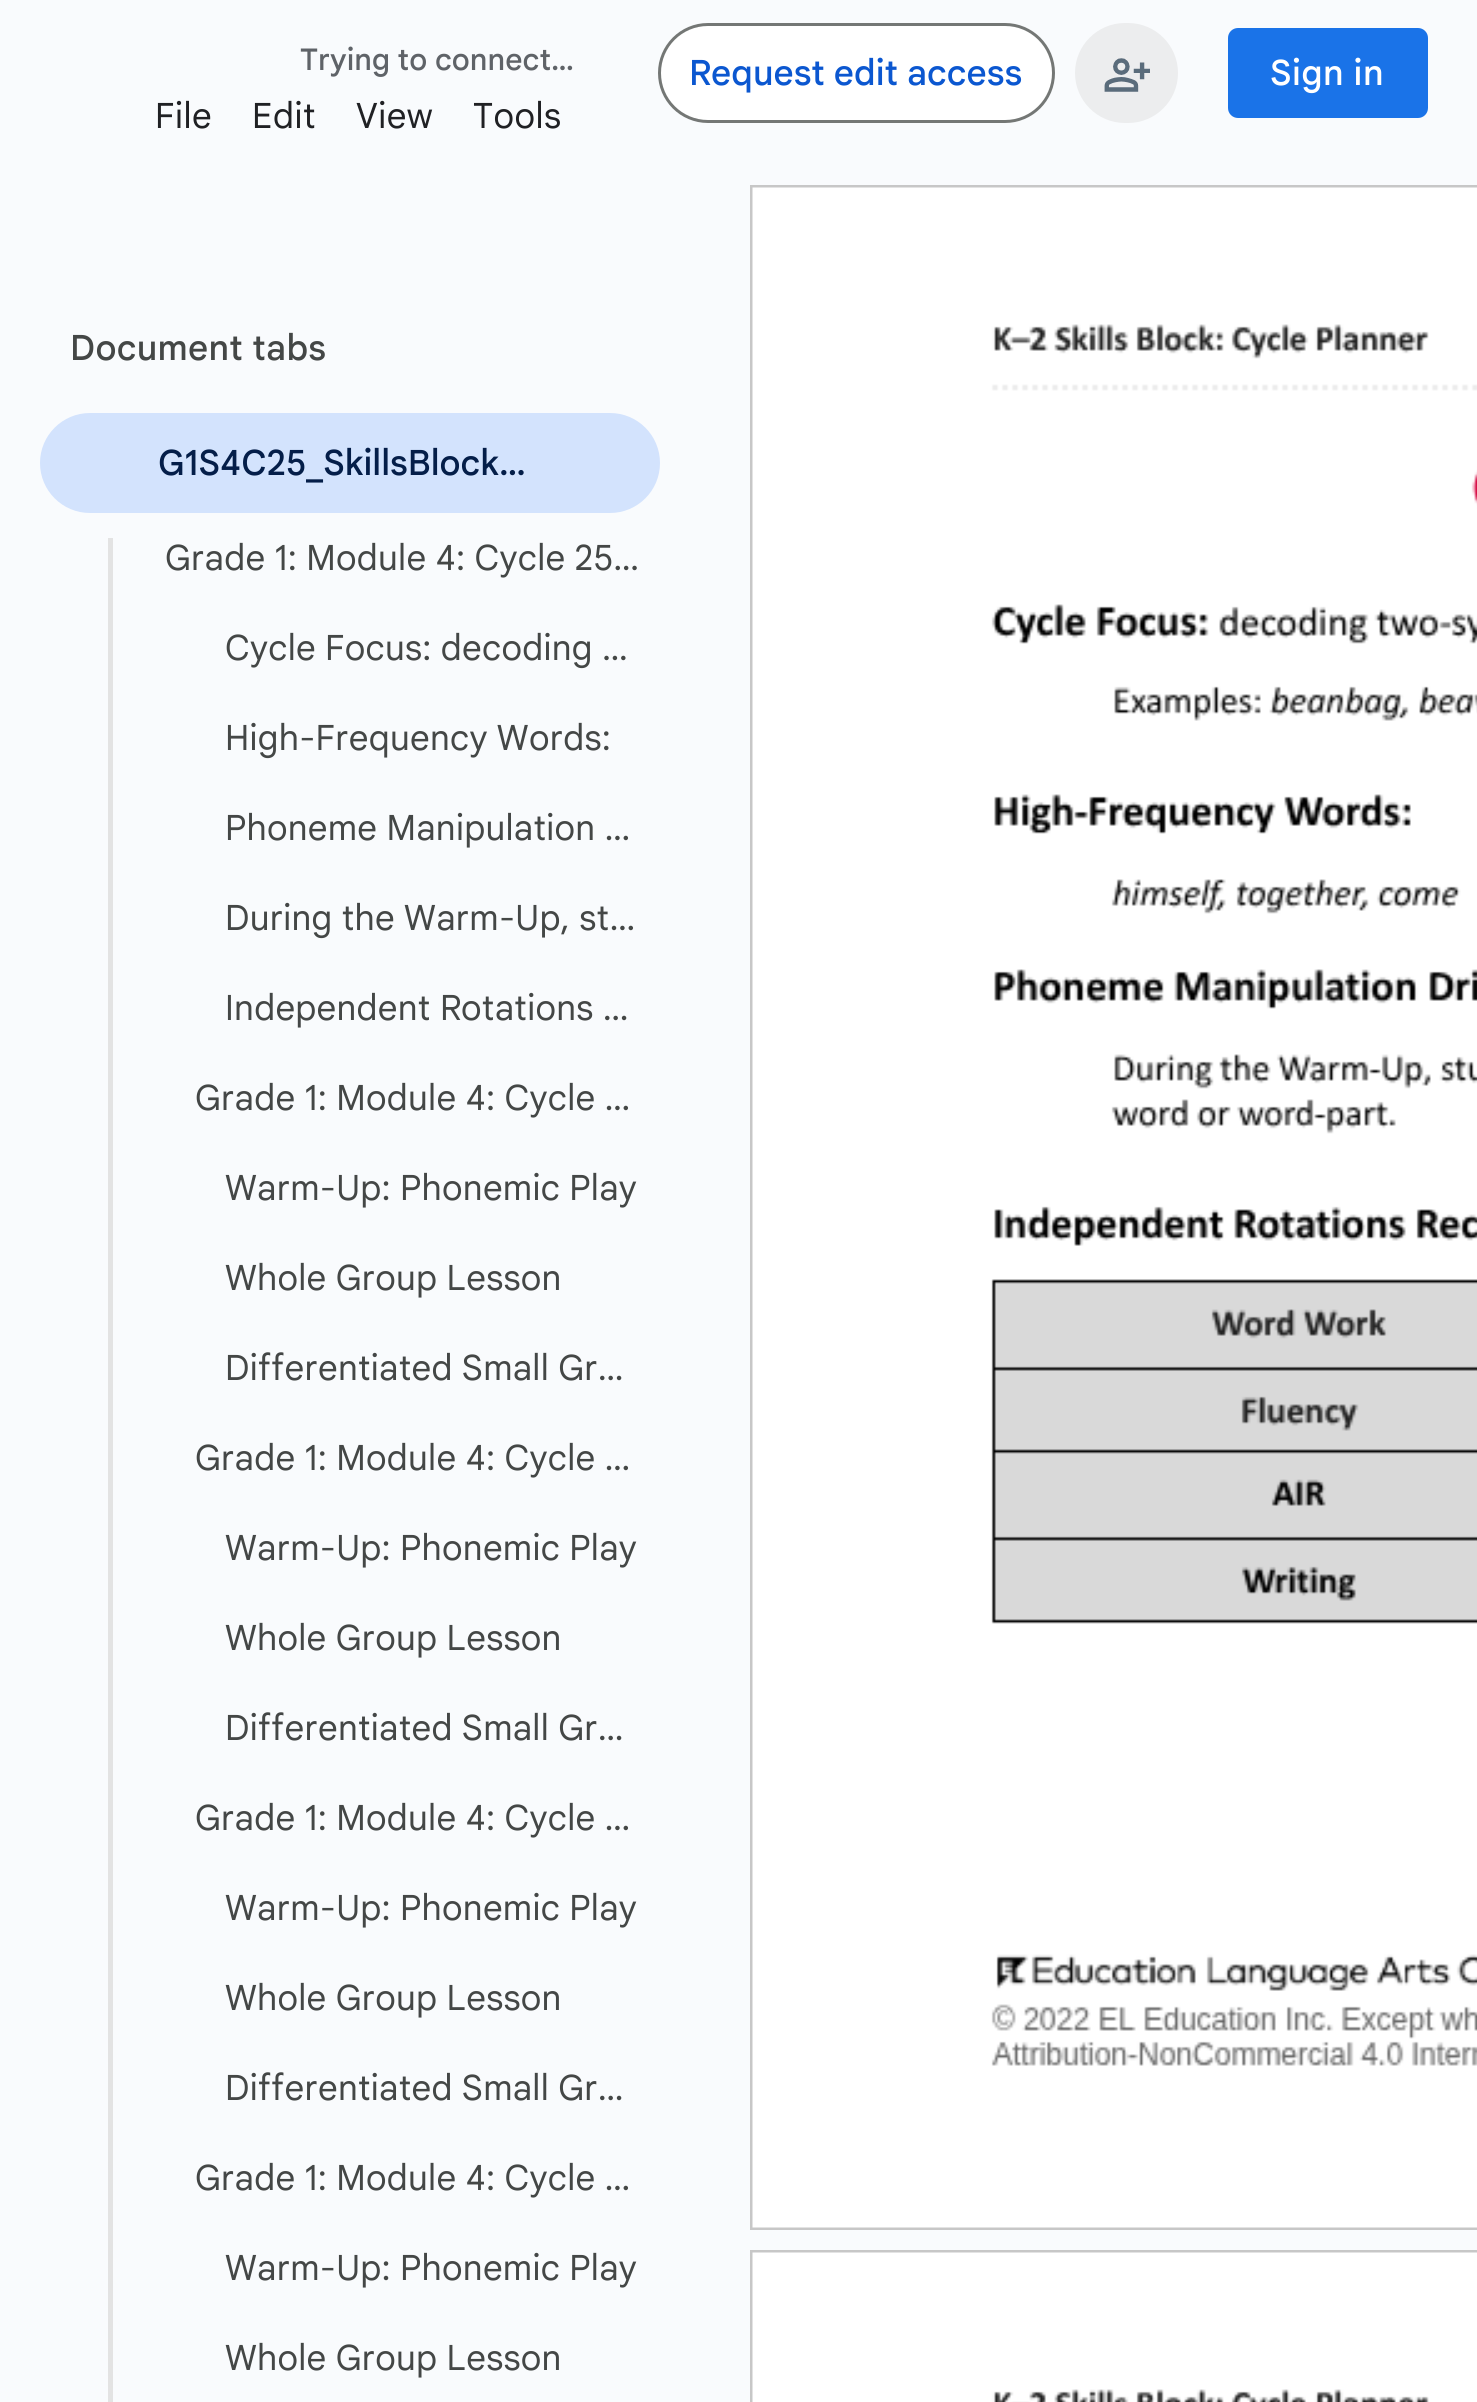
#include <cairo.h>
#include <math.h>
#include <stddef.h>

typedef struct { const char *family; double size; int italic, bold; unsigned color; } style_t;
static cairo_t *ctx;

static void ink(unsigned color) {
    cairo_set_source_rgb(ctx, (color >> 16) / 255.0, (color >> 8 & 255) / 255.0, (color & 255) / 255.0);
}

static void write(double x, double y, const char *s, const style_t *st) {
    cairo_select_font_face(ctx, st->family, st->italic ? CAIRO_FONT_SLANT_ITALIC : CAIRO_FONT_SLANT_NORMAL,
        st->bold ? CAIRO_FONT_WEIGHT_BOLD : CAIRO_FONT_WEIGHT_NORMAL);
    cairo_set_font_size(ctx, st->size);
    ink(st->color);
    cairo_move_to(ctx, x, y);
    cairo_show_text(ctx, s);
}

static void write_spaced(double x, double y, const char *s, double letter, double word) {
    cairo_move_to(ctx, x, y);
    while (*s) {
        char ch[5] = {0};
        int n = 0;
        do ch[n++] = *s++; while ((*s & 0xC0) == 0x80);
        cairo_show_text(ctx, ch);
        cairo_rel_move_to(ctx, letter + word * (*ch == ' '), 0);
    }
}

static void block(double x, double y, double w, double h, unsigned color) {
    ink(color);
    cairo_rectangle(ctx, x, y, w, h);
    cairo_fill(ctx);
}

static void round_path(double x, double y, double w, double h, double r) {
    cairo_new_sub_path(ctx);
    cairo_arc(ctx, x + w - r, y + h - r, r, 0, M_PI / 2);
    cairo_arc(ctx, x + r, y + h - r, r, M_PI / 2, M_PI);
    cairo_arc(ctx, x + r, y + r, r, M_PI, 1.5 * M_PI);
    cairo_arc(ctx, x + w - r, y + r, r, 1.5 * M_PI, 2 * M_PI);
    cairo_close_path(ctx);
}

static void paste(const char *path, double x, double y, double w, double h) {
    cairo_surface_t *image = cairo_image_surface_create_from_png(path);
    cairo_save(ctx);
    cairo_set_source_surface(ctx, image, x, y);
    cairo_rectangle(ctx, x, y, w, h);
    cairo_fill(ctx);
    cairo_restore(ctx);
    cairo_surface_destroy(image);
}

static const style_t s1 = {"Google Sans Medium", 30, 0, 0, 0x5f6368};
static const style_t s2 = {"Google Sans Medium", 35, 0, 0, 0x0b57d0};
static const style_t s3 = {"Google Sans Medium", 35, 0, 0, 0x041e49};

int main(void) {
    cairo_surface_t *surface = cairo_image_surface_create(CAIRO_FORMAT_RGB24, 1477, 2402);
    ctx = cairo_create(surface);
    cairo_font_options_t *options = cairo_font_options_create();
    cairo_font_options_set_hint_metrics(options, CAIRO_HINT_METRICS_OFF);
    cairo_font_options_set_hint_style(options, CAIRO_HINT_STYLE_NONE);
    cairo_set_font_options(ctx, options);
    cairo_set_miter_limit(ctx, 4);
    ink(0xf9fbfd);
    cairo_paint(ctx);
    write(300, 70, "Trying to connect…", &s1);
    ink(0xffffff);
    round_path(659.5, 24.5, 394, 97, 48.5);
    cairo_fill_preserve(ctx);
    ink(0x747775);
    cairo_set_line_width(ctx, 3);
    cairo_stroke(ctx);
    write(689, 85, "Request edit access", &s2);
    ink(0xecedee);
    round_path(1075, 23, 103, 100, 50);
    cairo_fill(ctx);
    paste("pic1.png", 1104, 58, 46, 34);
    ink(0x1a73e8);
    round_path(1228, 28, 200, 90, 10);
    cairo_fill(ctx);
    ink(0xffffff);
    write_spaced(1270, 85, "Sign in", 0.5, 0);
    cairo_select_font_face(ctx, "Google Sans", CAIRO_FONT_SLANT_NORMAL, CAIRO_FONT_WEIGHT_NORMAL);
    ink(0x202124);
    write_spaced(155, 128, "File", 0.5, 0);
    write_spaced(252, 128, "Edit", 0.5, 0);
    write_spaced(356, 128, "View", 0.5, 0);
    write_spaced(473, 128, "Tools", 0.5, 0);
    cairo_select_font_face(ctx, "Google Sans Medium", CAIRO_FONT_SLANT_NORMAL, CAIRO_FONT_WEIGHT_NORMAL);
    ink(0x444746);
    write_spaced(70, 360, "Document tabs", 0.25, 0);
    ink(0xd3e3fd);
    round_path(40, 413, 620, 100, 50);
    cairo_fill(ctx);
    write(158, 475, "G1S4C25_SkillsBlock…", &s3);
    block(108, 538, 5, 1864, 0xe3e3e3);
    cairo_select_font_face(ctx, "Google Sans", CAIRO_FONT_SLANT_NORMAL, CAIRO_FONT_WEIGHT_NORMAL);
    ink(0x444746);
    write_spaced(165, 570, "Grade 1: Module 4: Cycle 25…", 0.25, 0);
    write_spaced(225, 660, "Cycle Focus: decoding …", 0.25, 0);
    write_spaced(225, 750, "High-Frequency Words:", 0.25, 0);
    write_spaced(225, 840, "Phoneme Manipulation …", 0.25, 0);
    write_spaced(225, 930, "During the Warm-Up, st…", 0.25, 0);
    write_spaced(225, 1020, "Independent Rotations …", 0.25, 0);
    write_spaced(195, 1110, "Grade 1: Module 4: Cycle …", 0.25, 0);
    write_spaced(225, 1200, "Warm-Up: Phonemic Play", 0.25, 0);
    write_spaced(225, 1290, "Whole Group Lesson", 0.25, 0);
    write_spaced(225, 1380, "Differentiated Small Gr…", 0.25, 0);
    write_spaced(195, 1470, "Grade 1: Module 4: Cycle …", 0.25, 0);
    write_spaced(225, 1560, "Warm-Up: Phonemic Play", 0.25, 0);
    write_spaced(225, 1650, "Whole Group Lesson", 0.25, 0);
    write_spaced(225, 1740, "Differentiated Small Gr…", 0.25, 0);
    write_spaced(195, 1830, "Grade 1: Module 4: Cycle …", 0.25, 0);
    write_spaced(225, 1920, "Warm-Up: Phonemic Play", 0.25, 0);
    write_spaced(225, 2010, "Whole Group Lesson", 0.25, 0);
    write_spaced(225, 2100, "Differentiated Small Gr…", 0.25, 0);
    write_spaced(195, 2190, "Grade 1: Module 4: Cycle …", 0.25, 0);
    write_spaced(225, 2280, "Warm-Up: Phonemic Play", 0.25, 0);
    write_spaced(225, 2370, "Whole Group Lesson", 0.25, 0);
    cairo_rectangle(ctx, 751.5, 186.5, 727, 2042);
    ink(0xc7c7c7);
    cairo_stroke(ctx);
    paste("pic2.png", 752, 187, 725, 2041);
    cairo_rectangle(ctx, 751.5, 2251.5, 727, 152);
    cairo_stroke(ctx);
    paste("pic3.png", 752, 2252, 725, 150);
    cairo_surface_write_to_png(surface, "screenshot.png");
    cairo_font_options_destroy(options);
    cairo_destroy(ctx);
    cairo_surface_destroy(surface);
    return 0;
}
